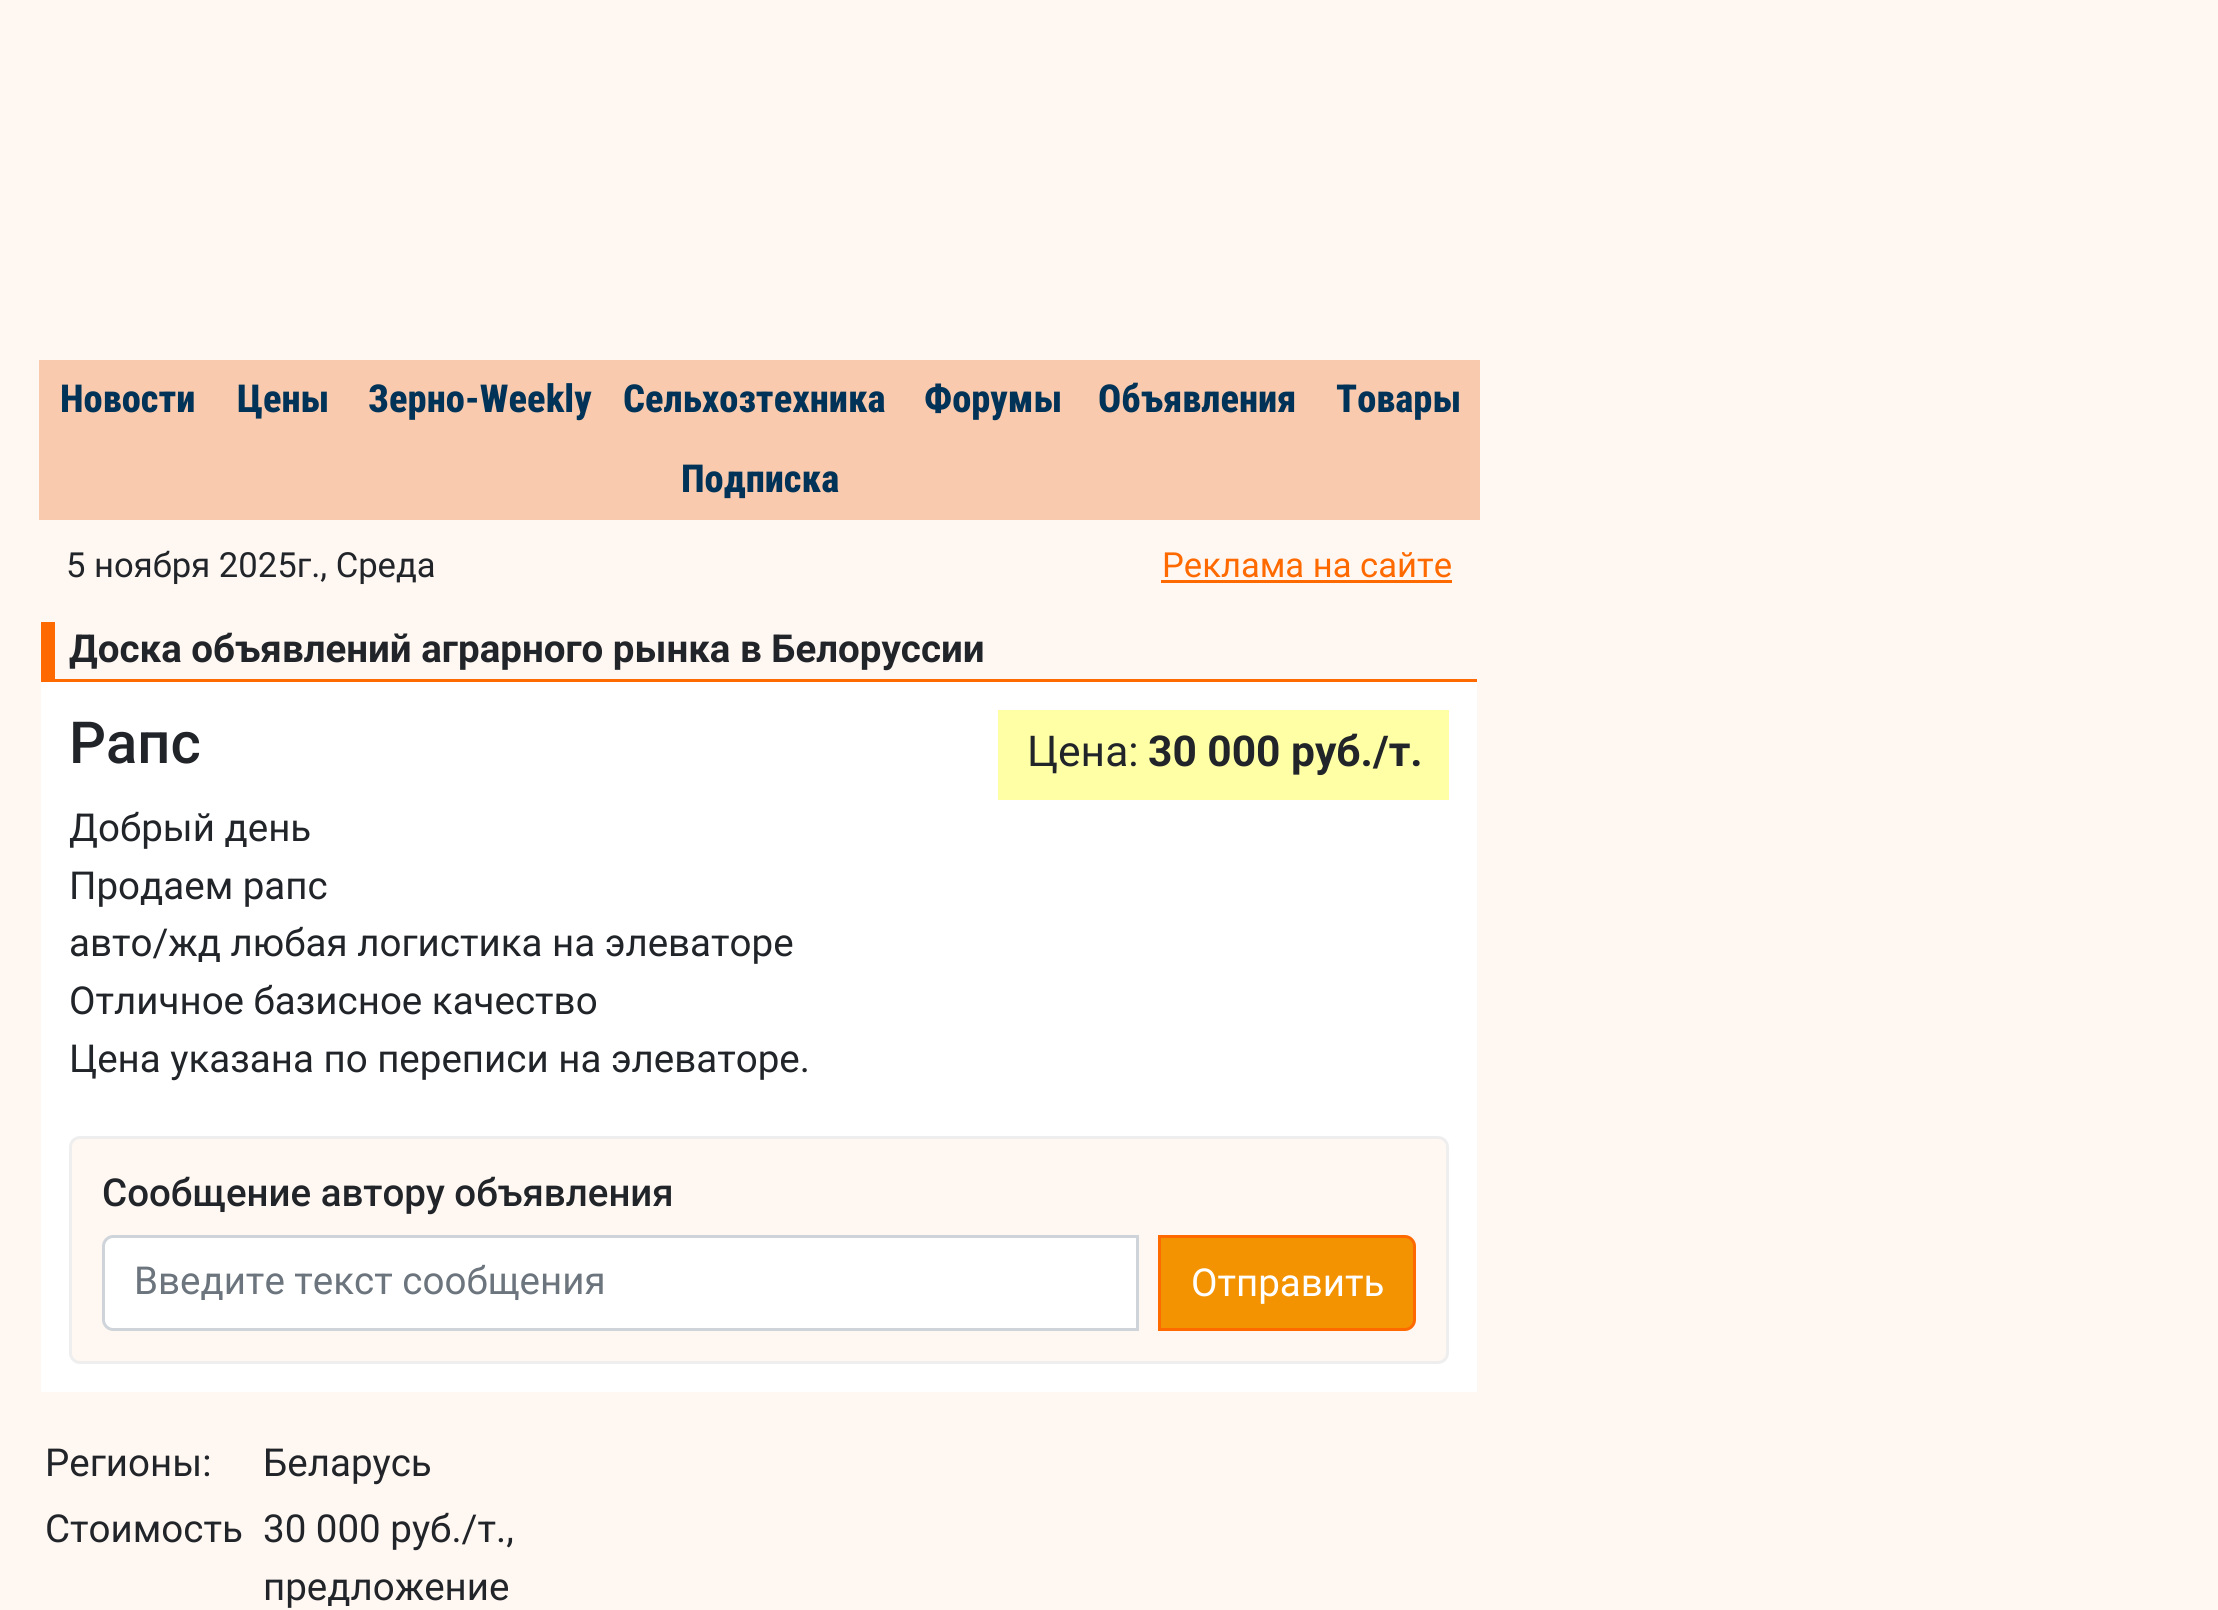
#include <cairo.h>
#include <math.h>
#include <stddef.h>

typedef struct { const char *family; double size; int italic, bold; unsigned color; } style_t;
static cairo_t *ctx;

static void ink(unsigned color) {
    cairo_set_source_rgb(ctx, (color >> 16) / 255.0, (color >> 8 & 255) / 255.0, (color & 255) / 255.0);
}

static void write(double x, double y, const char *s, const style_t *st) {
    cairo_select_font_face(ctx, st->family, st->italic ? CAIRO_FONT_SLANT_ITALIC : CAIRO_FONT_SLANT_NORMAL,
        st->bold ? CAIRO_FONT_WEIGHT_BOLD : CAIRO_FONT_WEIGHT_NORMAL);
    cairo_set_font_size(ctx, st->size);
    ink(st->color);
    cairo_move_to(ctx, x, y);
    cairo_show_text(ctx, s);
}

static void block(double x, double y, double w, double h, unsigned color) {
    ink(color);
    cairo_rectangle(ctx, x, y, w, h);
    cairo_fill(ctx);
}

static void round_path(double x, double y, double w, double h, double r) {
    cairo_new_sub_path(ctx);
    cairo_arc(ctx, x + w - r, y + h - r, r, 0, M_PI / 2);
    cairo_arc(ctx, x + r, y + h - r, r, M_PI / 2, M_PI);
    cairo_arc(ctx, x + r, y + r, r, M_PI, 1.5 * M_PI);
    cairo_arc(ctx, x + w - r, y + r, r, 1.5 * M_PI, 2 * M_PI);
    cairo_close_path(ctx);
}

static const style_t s1 = {"Roboto Condensed ExtraBold", 38.5, 0, 0, 0x003357};
static const style_t s2 = {"Roboto", 34.6, 0, 0, 0x212529};
static const style_t s3 = {"Roboto", 34.6, 0, 0, 0xff6a00};
static const style_t s4 = {"Roboto", 38.5, 0, 1, 0x212529};
static const style_t s5 = {"Roboto Medium", 58, 0, 0, 0x212529};
static const style_t s6 = {"Roboto", 42.5, 0, 0, 0x212529};
static const style_t s7 = {"Roboto", 42.5, 0, 1, 0x212529};
static const style_t s8 = {"Roboto", 38.5, 0, 0, 0x212529};
static const style_t s9 = {"Roboto Medium", 38.5, 0, 0, 0x212529};
static const style_t s10 = {"Roboto", 38.5, 0, 0, 0x6c757d};
static const style_t s11 = {"Roboto", 38.5, 0, 0, 0xffffff};

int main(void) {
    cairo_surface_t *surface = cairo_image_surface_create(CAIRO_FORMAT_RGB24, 2218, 1610);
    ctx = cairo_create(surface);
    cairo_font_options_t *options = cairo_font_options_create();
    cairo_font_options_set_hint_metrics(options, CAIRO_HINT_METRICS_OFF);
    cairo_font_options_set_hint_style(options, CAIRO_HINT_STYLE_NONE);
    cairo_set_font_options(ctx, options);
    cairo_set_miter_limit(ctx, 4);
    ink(0xfff7f2);
    cairo_paint(ctx);
    block(39, 360, 1441, 160, 0xf9caad);
    write(60, 412, "Новости", &s1);
    write(237, 412, "Цены", &s1);
    write(368, 412, "Зерно-Weekly", &s1);
    write(623, 412, "Сельхозтехника", &s1);
    write(924, 412, "Форумы", &s1);
    write(1098, 412, "Объявления", &s1);
    write(1336, 412, "Товары", &s1);
    write(681, 492, "Подписка", &s1);
    write(66, 577, "5 ноября 2025г., Среда", &s2);
    write(1162, 577, "Реклама на сайте", &s3);
    block(1161, 580, 291, 3, 0xff6a00);
    block(55, 679, 1422, 3, 0xff6a00);
    block(41, 622, 14, 60, 0xff6a00);
    write(69, 662, "Доска объявлений аграрного рынка в Белоруссии", &s4);
    block(41, 682, 1436, 710, 0xffffff);
    write(69, 763, "Рапс", &s5);
    block(998, 710, 451, 90, 0xffffa5);
    write(1027, 766, "Цена:", &s6);
    write(1148, 766, "30 000 руб./т.", &s7);
    write(69, 841, "Добрый день", &s8);
    write(69, 899, "Продаем рапс", &s8);
    write(69, 956, "авто/жд любая логистика на элеваторе", &s8);
    write(69, 1014, "Отличное базисное качество", &s8);
    write(69, 1072, "Цена указана по переписи на элеваторе.", &s8);
    ink(0xfff7f2);
    round_path(70.5, 1137.5, 1377, 225, 9.5);
    cairo_fill_preserve(ctx);
    ink(0xeeeeee);
    cairo_set_line_width(ctx, 3);
    cairo_stroke(ctx);
    write(102, 1206, "Сообщение автору объявления", &s9);
    ink(0xffffff);
    cairo_new_path(ctx);
    cairo_move_to(ctx, 112, 1238);
    cairo_line_to(ctx, 1136, 1238);
    cairo_line_to(ctx, 1136, 1328);
    cairo_line_to(ctx, 112, 1328);
    cairo_curve_to(ctx, 108, 1328, 105, 1325, 105, 1321);
    cairo_line_to(ctx, 105, 1245);
    cairo_curve_to(ctx, 105, 1241, 108, 1238, 112, 1238);
    cairo_close_path(ctx);
    cairo_fill(ctx);
    cairo_new_path(ctx);
    cairo_move_to(ctx, 113, 1236.5);
    cairo_line_to(ctx, 1137.5, 1236.5);
    cairo_line_to(ctx, 1137.5, 1329.5);
    cairo_line_to(ctx, 113, 1329.5);
    cairo_curve_to(ctx, 108, 1329.5, 103.5, 1325, 103.5, 1320);
    cairo_line_to(ctx, 103.5, 1246);
    cairo_curve_to(ctx, 103.5, 1241, 108, 1236.5, 113, 1236.5);
    cairo_close_path(ctx);
    ink(0xced4da);
    cairo_stroke(ctx);
    write(134, 1294, "Введите текст сообщения", &s10);
    ink(0xf49301);
    cairo_new_path(ctx);
    cairo_move_to(ctx, 1159.5, 1236.5);
    cairo_line_to(ctx, 1405, 1236.5);
    cairo_curve_to(ctx, 1410, 1236.5, 1414.5, 1241, 1414.5, 1246);
    cairo_line_to(ctx, 1414.5, 1320);
    cairo_curve_to(ctx, 1414.5, 1325, 1410, 1329.5, 1405, 1329.5);
    cairo_line_to(ctx, 1159.5, 1329.5);
    cairo_close_path(ctx);
    cairo_fill_preserve(ctx);
    ink(0xff6a00);
    cairo_stroke(ctx);
    write(1191, 1296, "Отправить", &s11);
    write(45, 1476, "Регионы:", &s8);
    write(263, 1476, "Беларусь", &s8);
    write(45, 1542, "Стоимость", &s8);
    write(263, 1542, "30 000 руб./т.,", &s8);
    write(263, 1600, "предложение", &s8);
    cairo_surface_write_to_png(surface, "screenshot.png");
    cairo_font_options_destroy(options);
    cairo_destroy(ctx);
    cairo_surface_destroy(surface);
    return 0;
}
